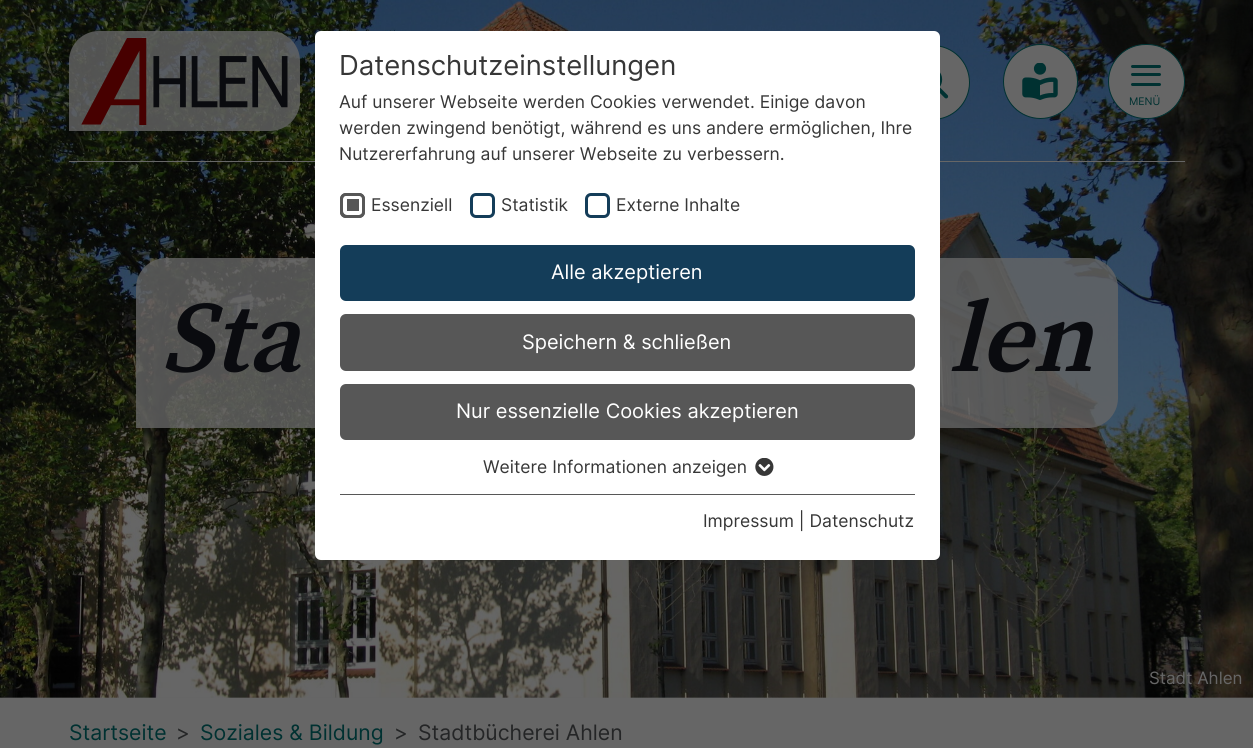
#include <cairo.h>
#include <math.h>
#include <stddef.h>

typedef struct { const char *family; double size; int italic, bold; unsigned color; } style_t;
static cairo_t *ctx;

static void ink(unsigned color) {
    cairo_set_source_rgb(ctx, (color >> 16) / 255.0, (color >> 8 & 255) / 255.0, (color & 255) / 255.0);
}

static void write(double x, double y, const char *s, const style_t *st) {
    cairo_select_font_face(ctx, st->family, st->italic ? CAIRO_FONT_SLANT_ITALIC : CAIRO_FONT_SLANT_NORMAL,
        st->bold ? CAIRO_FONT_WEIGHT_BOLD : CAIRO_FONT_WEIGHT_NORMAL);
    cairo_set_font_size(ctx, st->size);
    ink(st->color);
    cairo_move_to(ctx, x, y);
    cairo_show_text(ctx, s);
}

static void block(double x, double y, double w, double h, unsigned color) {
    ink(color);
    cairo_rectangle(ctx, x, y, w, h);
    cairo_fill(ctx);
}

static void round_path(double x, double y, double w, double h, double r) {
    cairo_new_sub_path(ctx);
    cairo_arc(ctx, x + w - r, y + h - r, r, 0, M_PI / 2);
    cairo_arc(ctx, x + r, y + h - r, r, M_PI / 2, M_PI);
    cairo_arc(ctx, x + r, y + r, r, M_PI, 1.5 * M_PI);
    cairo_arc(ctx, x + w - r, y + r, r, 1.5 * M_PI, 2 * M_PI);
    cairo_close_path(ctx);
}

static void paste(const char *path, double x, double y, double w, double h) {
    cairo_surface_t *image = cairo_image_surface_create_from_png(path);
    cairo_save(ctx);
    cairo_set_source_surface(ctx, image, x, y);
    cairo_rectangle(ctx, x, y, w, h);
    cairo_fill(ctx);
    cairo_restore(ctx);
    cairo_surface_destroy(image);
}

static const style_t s1 = {"Inter", 27.5, 0, 0, 0x373737};
static const style_t s2 = {"Inter", 17.5, 0, 0, 0x373737};
static const style_t s3 = {"Inter", 20, 0, 0, 0xffffff};
static const style_t s4 = {"Inter", 10.5, 0, 0, 0x003131};
static const style_t s5 = {"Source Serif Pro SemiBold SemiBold", 100, 1, 0, 0x0a0b0f};
static const style_t s6 = {"Inter", 17, 0, 0, 0x666666};
static const style_t s7 = {"Inter", 21.25, 0, 0, 0x003131};
static const style_t s8 = {"Inter", 21.25, 0, 0, 0x242526};

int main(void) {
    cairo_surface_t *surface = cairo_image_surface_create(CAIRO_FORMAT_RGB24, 1253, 748);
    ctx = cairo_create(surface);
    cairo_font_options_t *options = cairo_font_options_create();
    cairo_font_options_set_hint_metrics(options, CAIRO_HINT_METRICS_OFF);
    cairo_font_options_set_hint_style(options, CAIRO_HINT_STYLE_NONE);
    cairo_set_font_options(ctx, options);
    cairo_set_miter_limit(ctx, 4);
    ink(0x666666);
    cairo_paint(ctx);
    paste("pic5.png", 0, 0, 1253, 698);
    block(69, 161, 1116, 1, 0x666666);
    cairo_arc(ctx, 932.5, 82.5, 37, 0, 2 * M_PI);
    cairo_fill_preserve(ctx);
    ink(0x003131);
    cairo_set_line_width(ctx, 1);
    cairo_stroke(ctx);
    cairo_set_source_rgba(ctx, 0.4, 0.4, 0.4, 0.8);
    cairo_new_path(ctx);
    cairo_move_to(ctx, 166, 258);
    cairo_line_to(ctx, 1088, 258);
    cairo_curve_to(ctx, 1104.5, 258, 1118, 271.5, 1118, 288);
    cairo_line_to(ctx, 1118, 398);
    cairo_curve_to(ctx, 1118, 414.5, 1104.5, 428, 1088, 428);
    cairo_line_to(ctx, 136, 428);
    cairo_line_to(ctx, 136, 288);
    cairo_curve_to(ctx, 136, 271.5, 149.5, 258, 166, 258);
    cairo_close_path(ctx);
    cairo_fill(ctx);
    ink(0xffffff);
    round_path(315, 31, 625, 529, 6);
    cairo_fill(ctx);
    write(339, 75, "Datenschutzeinstellungen", &s1);
    write(339, 108, "Auf unserer Webseite werden Cookies verwendet. Einige davon", &s2);
    write(339, 134, "werden zwingend benötigt, während es uns andere ermöglichen, Ihre", &s2);
    write(339, 160, "Nutzererfahrung auf unserer Webseite zu verbessern.", &s2);
    ink(0x575757);
    round_path(340, 193, 25, 25, 6);
    cairo_fill(ctx);
    round_path(345, 197, 16, 16, 2);
    ink(0xffffff);
    cairo_set_line_width(ctx, 4);
    cairo_stroke(ctx);
    round_path(341.5, 194.5, 22, 22, 4.5);
    ink(0x575757);
    cairo_set_line_width(ctx, 3);
    cairo_stroke(ctx);
    write(371, 211, "Essenziell", &s2);
    round_path(471.5, 194.5, 22, 22, 4.5);
    ink(0x143d59);
    cairo_stroke(ctx);
    write(501, 211, "Statistik", &s2);
    round_path(586.5, 194.5, 22, 22, 4.5);
    ink(0x143d59);
    cairo_stroke(ctx);
    write(616, 211, "Externe Inhalte", &s2);
    ink(0x143d59);
    round_path(340, 245, 575, 56, 6);
    cairo_fill(ctx);
    write(551, 279, "Alle akzeptieren", &s3);
    ink(0x575757);
    round_path(340, 314, 575, 57, 6);
    cairo_fill(ctx);
    write(522, 349, "Speichern & schließen", &s3);
    ink(0x575757);
    round_path(340, 384, 575, 56, 6);
    cairo_fill(ctx);
    write(456, 418, "Nur essenzielle Cookies akzeptieren", &s3);
    write(483, 473, "Weitere Informationen anzeigen", &s2);
    paste("pic1.png", 755, 458, 19, 18);
    block(340, 494, 575, 1, 0x575757);
    write(703, 527, "Impressum | Datenschutz", &s2);
    cairo_set_source_rgba(ctx, 0.4, 0.4, 0.4, 0.8);
    cairo_new_path(ctx);
    cairo_move_to(ctx, 99, 31);
    cairo_line_to(ctx, 270, 31);
    cairo_curve_to(ctx, 286.5, 31, 300, 44.5, 300, 61);
    cairo_line_to(ctx, 300, 101);
    cairo_curve_to(ctx, 300, 117.5, 286.5, 131, 270, 131);
    cairo_line_to(ctx, 69, 131);
    cairo_line_to(ctx, 69, 61);
    cairo_curve_to(ctx, 69, 44.5, 82.5, 31, 99, 31);
    cairo_close_path(ctx);
    cairo_fill(ctx);
    paste("pic2.png", 81, 38, 207, 87);
    paste("pic3.png", 940, 72, 9, 27);
    ink(0x666666);
    cairo_arc(ctx, 1040.5, 81.5, 37, 0, 2 * M_PI);
    cairo_fill_preserve(ctx);
    ink(0x003131);
    cairo_set_line_width(ctx, 1);
    cairo_stroke(ctx);
    paste("pic4.png", 1022, 63, 36, 37);
    ink(0x666666);
    round_path(1108.5, 44.5, 76, 74, 37);
    cairo_fill_preserve(ctx);
    ink(0x003131);
    cairo_stroke(ctx);
    round_path(1131, 65, 30, 3, 1.5);
    cairo_fill(ctx);
    round_path(1131, 73, 30, 3, 1.5);
    cairo_fill(ctx);
    round_path(1131, 83, 30, 3, 1.5);
    cairo_fill(ctx);
    write(1129, 105, "MENÜ", &s4);
    write(161, 371, "Sta", &s5);
    write(949, 371, "len", &s5);
    write(1149, 684, "Stadt Ahlen", &s6);
    write(69, 740, "Startseite", &s7);
    write(176, 740, ">", &s8);
    write(200, 740, "Soziales & Bildung", &s7);
    write(394, 740, ">", &s8);
    write(418, 740, "Stadtbücherei Ahlen", &s8);
    cairo_surface_write_to_png(surface, "screenshot.png");
    cairo_font_options_destroy(options);
    cairo_destroy(ctx);
    cairo_surface_destroy(surface);
    return 0;
}
